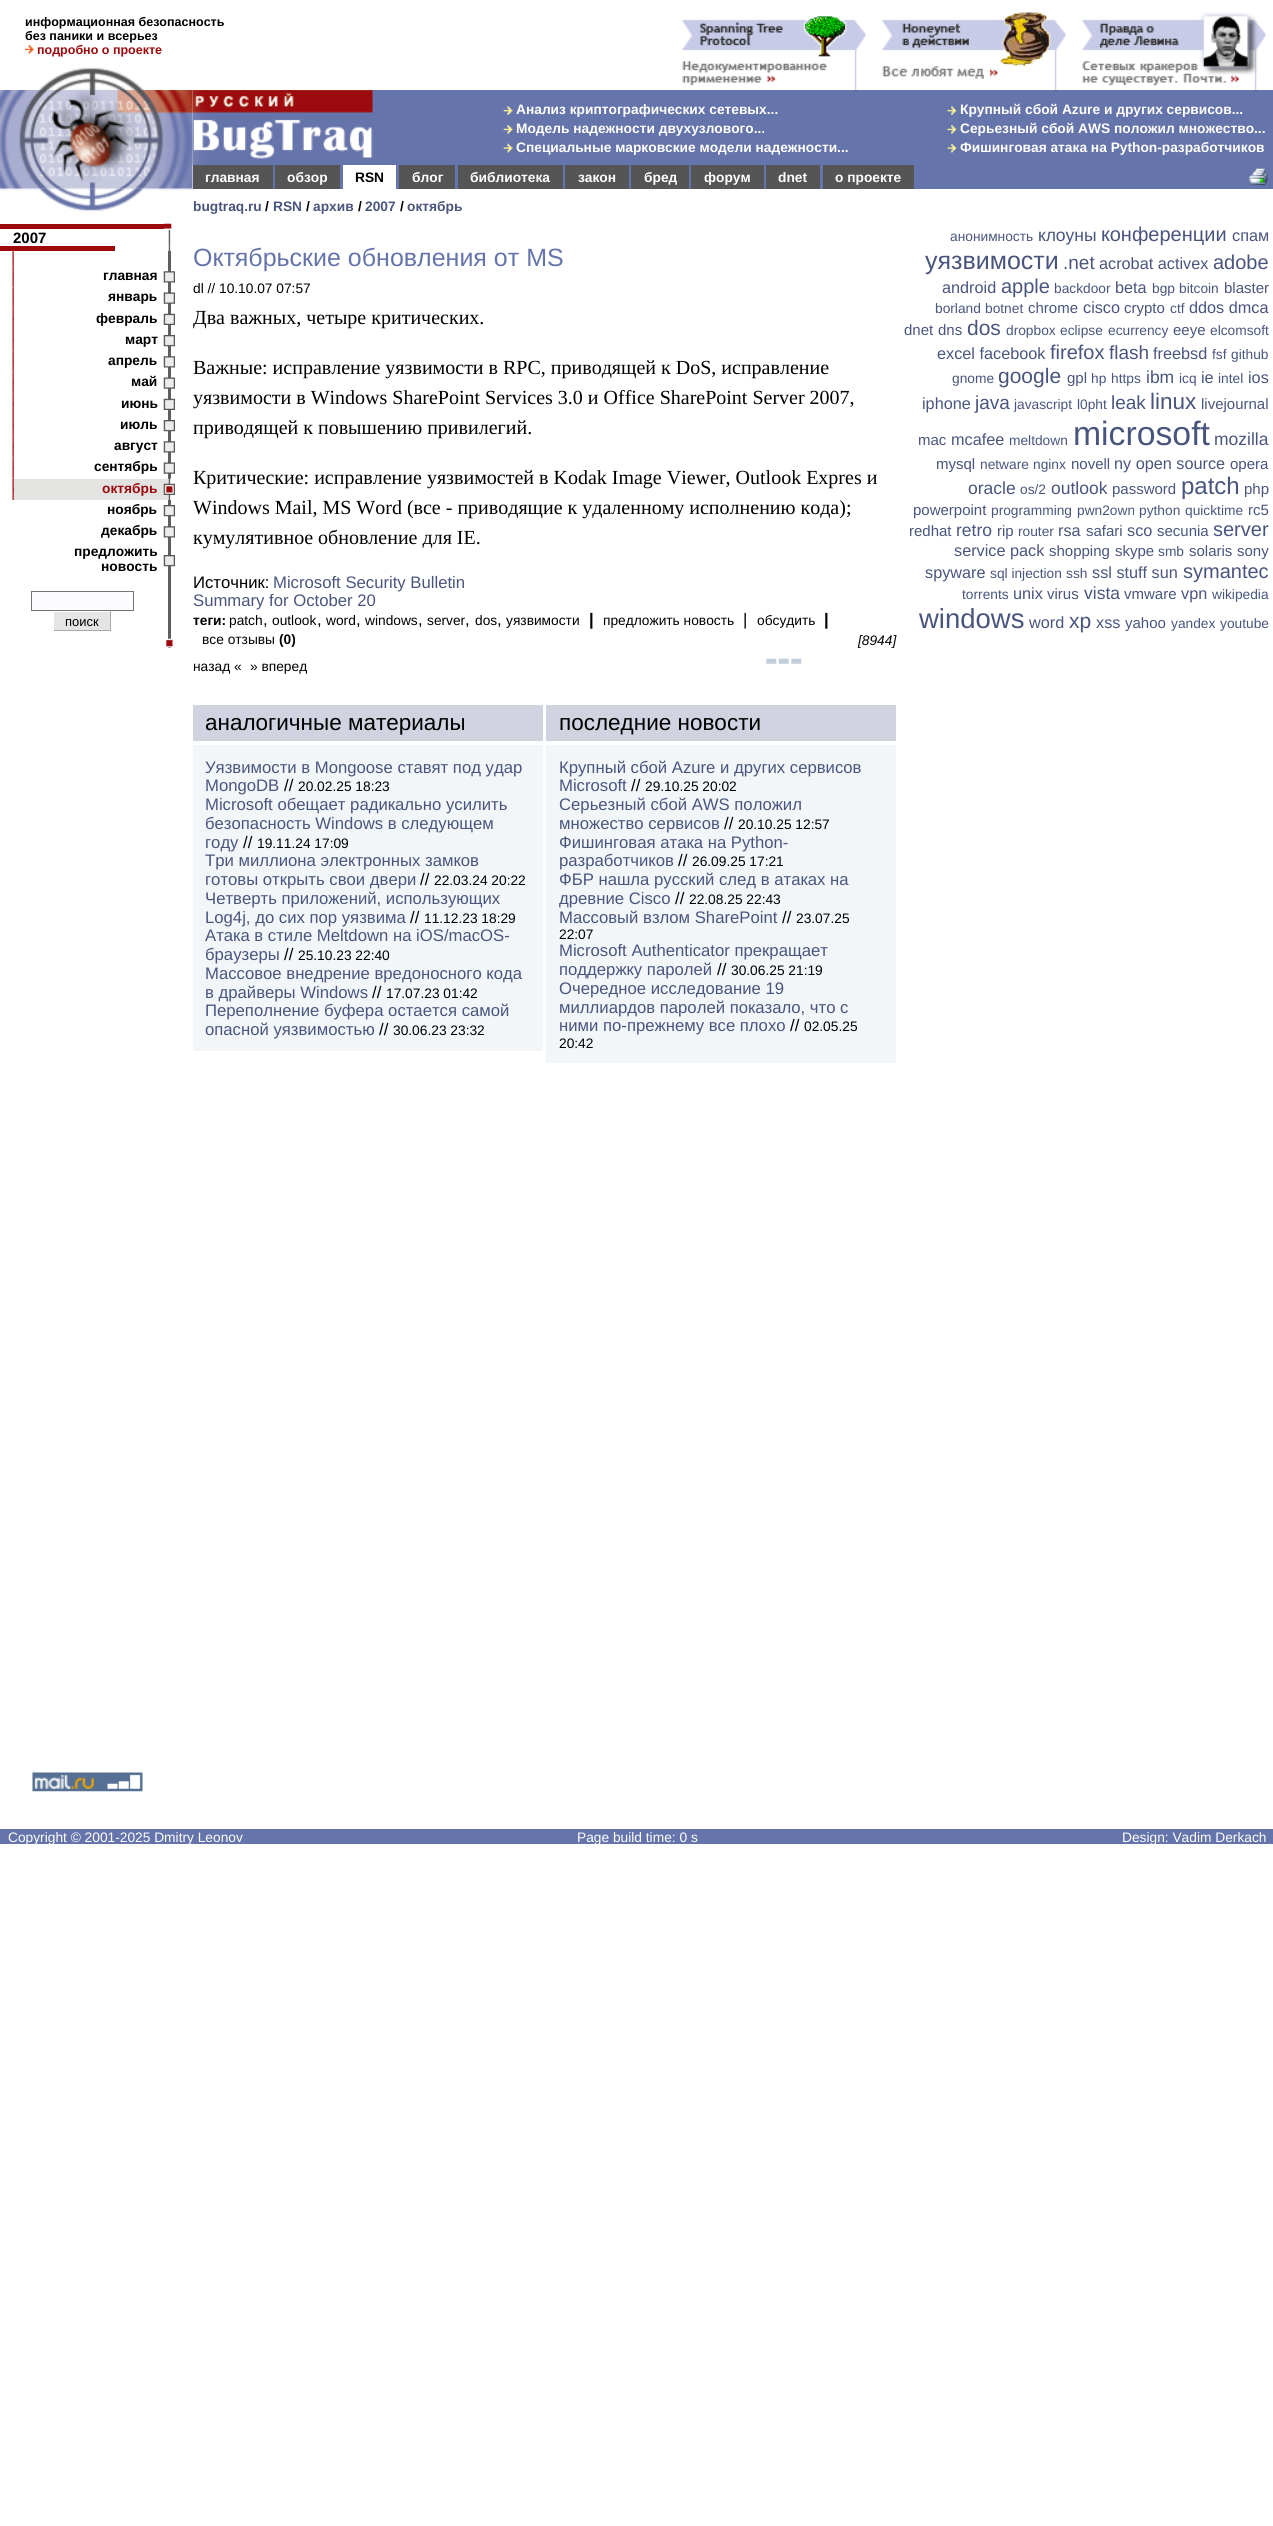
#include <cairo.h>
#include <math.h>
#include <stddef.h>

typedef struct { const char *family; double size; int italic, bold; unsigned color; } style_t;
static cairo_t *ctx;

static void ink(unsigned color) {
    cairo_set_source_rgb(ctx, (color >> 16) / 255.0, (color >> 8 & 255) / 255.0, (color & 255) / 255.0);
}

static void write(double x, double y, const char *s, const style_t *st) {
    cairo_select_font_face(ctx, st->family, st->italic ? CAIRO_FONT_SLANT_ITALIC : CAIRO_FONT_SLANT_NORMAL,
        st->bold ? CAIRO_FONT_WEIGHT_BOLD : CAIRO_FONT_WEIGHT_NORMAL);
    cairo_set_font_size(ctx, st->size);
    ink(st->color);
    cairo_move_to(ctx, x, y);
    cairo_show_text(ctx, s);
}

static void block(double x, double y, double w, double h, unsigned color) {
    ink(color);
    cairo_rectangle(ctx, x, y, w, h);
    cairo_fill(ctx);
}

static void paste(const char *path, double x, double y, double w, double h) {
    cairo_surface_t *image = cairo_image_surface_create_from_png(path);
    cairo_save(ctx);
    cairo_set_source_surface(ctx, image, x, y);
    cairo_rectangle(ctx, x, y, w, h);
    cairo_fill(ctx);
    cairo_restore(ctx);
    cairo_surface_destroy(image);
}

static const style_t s1 = {"Liberation Sans", 12.5, 0, 1, 0x000000};
static const style_t s2 = {"Liberation Sans", 12.5, 0, 1, 0x9c0a0e};
static const style_t s3 = {"Liberation Sans", 13.75, 0, 1, 0xffffff};
static const style_t s4 = {"Liberation Sans", 13.75, 0, 1, 0x000000};
static const style_t s5 = {"Liberation Sans", 13.75, 0, 1, 0x4a557e};
static const style_t s6 = {"Liberation Sans", 15, 0, 1, 0x000000};
static const style_t s7 = {"Liberation Sans", 13.75, 0, 1, 0x9c0a0e};
static const style_t s8 = {"Liberation Sans", 13, 0, 0, 0x000000};
static const style_t s9 = {"Liberation Sans", 25, 0, 0, 0x6574ab};
static const style_t s10 = {"Liberation Sans", 13.75, 0, 0, 0x000000};
static const style_t s11 = {"Liberation Serif", 20, 0, 0, 0x000000};
static const style_t s12 = {"Liberation Sans", 16.7, 0, 0, 0x000000};
static const style_t s13 = {"Liberation Sans", 16.7, 0, 0, 0x4a557e};
static const style_t s14 = {"Liberation Sans", 16.7, 0, 1, 0x000000};
static const style_t s15 = {"Liberation Sans", 13.75, 1, 0, 0x000000};
static const style_t s16 = {"Liberation Sans", 22.5, 0, 0, 0x000000};
static const style_t s17 = {"Liberation Sans", 13.75, 0, 0, 0x4a557e};
static const style_t s18 = {"Liberation Sans", 17.5, 0, 0, 0x4a557e};
static const style_t s19 = {"Liberation Sans", 20, 0, 0, 0x4a557e};
static const style_t s20 = {"Liberation Sans", 16.25, 0, 0, 0x4a557e};
static const style_t s21 = {"Liberation Sans", 25, 0, 0, 0x4a557e};
static const style_t s22 = {"Liberation Sans", 19, 0, 0, 0x4a557e};
static const style_t s23 = {"Liberation Sans", 15, 0, 0, 0x4a557e};
static const style_t s24 = {"Liberation Sans", 21, 0, 0, 0x4a557e};
static const style_t s25 = {"Liberation Sans", 22.5, 0, 0, 0x4a557e};
static const style_t s26 = {"Liberation Sans", 33.75, 0, 0, 0x4a557e};
static const style_t s27 = {"Liberation Sans", 24, 0, 0, 0x4a557e};
static const style_t s28 = {"Liberation Sans", 27.5, 0, 0, 0x4a557e};
static const style_t s29 = {"Liberation Sans", 13.75, 0, 0, 0xffffff};

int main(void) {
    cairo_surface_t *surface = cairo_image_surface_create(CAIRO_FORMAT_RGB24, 1273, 2526);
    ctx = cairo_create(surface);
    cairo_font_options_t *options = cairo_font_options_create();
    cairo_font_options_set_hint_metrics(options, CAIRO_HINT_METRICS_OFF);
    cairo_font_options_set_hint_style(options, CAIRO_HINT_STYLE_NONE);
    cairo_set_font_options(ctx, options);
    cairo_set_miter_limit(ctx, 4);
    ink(0xffffff);
    cairo_paint(ctx);
    write(25, 26, "информационная безопасность", &s1);
    write(25, 40, "без паники и всерьез", &s1);
    paste("pic1.png", 25, 45, 9, 9);
    write(37, 54, "подробно о проекте", &s2);
    paste("pic2.png", 682, 16, 185, 74);
    paste("pic3.png", 882, 11, 185, 79);
    paste("pic4.png", 1082, 12, 185, 78);
    paste("pic5.png", 38, 67, 106, 23);
    block(372, 90, 901, 75, 0x6574ab);
    paste("pic6.png", 0, 90, 193, 99);
    paste("pic7.png", 0, 188, 193, 24);
    paste("pic8.png", 192, 90, 181, 75);
    paste("pic9.png", 503, 106, 10, 9);
    write(516, 114, "Анализ криптографических сетевых...", &s3);
    paste("pic10.png", 503, 125, 10, 9);
    write(516, 133, "Модель надежности двухузлового...", &s3);
    paste("pic11.png", 503, 143, 10, 10);
    write(516, 152, "Специальные марковские модели надежности...", &s3);
    paste("pic12.png", 947, 106, 10, 9);
    write(960, 114, "Крупный сбой Azure и других сервисов...", &s3);
    paste("pic13.png", 947, 125, 10, 9);
    write(960, 133, "Серьезный сбой AWS положил множество...", &s3);
    paste("pic14.png", 947, 143, 10, 10);
    write(960, 152, "Фишинговая атака на Python-разработчиков", &s3);
    block(273, 165, 1000, 24, 0x6574ab);
    block(193, 165, 80, 24, 0x555555);
    write(205, 182, "главная", &s3);
    block(275, 165, 65, 24, 0x555555);
    write(287, 182, "обзор", &s3);
    block(343, 165, 53, 24, 0xffffff);
    write(355, 182, "RSN", &s4);
    block(399, 165, 56, 24, 0x555555);
    write(412, 182, "блог", &s3);
    block(458, 165, 105, 24, 0x555555);
    write(470, 182, "библиотека", &s3);
    block(565, 165, 64, 24, 0x555555);
    write(578, 182, "закон", &s3);
    block(631, 165, 58, 24, 0x555555);
    write(644, 182, "бред", &s3);
    block(691, 165, 73, 24, 0x555555);
    write(704, 182, "форум", &s3);
    block(766, 165, 54, 24, 0x555555);
    write(778, 182, "dnet", &s3);
    block(823, 165, 91, 24, 0x555555);
    write(835, 182, "о проекте", &s3);
    paste("pic15.png", 1248, 168, 20, 18);
    write(193, 211, "bugtraq.ru", &s5);
    write(265, 211, "/", &s4);
    write(273, 211, "RSN", &s5);
    write(306, 211, "/", &s4);
    write(313, 211, "архив", &s5);
    write(358, 211, "/", &s4);
    write(365, 211, "2007", &s5);
    write(400, 211, "/", &s4);
    write(407, 211, "октябрь", &s5);
    block(0, 224, 164, 5, 0x9c0a0e);
    paste("pic17.png", 163, 228, 12, 19);
    paste("pic16.png", 163, 223, 12, 6);
    write(13, 243, "2007", &s6);
    paste("pic18.png", 163, 228, 12, 2);
    block(0, 246, 115, 5, 0x9c0a0e);
    paste("pic19.png", 163, 246, 8, 6);
    paste("pic21.png", 12, 266, 2, 22);
    paste("pic20.png", 12, 251, 2, 16);
    block(168, 251, 3, 228, 0x5f5f5f);
    paste("pic22.png", 13, 276, 1, 2);
    write(103, 280, "главная", &s4);
    paste("pic23.png", 163, 271, 12, 12);
    paste("pic24.png", 12, 287, 2, 22);
    paste("pic25.png", 13, 297, 1, 2);
    write(108, 301, "январь", &s4);
    paste("pic26.png", 163, 292, 12, 12);
    paste("pic27.png", 12, 308, 2, 22);
    paste("pic28.png", 13, 318, 1, 2);
    write(96, 323, "февраль", &s4);
    paste("pic29.png", 163, 313, 12, 12);
    paste("pic30.png", 12, 330, 2, 22);
    paste("pic31.png", 13, 340, 1, 2);
    write(125, 344, "март", &s4);
    paste("pic32.png", 163, 335, 12, 12);
    paste("pic33.png", 12, 351, 2, 22);
    paste("pic22.png", 13, 361, 1, 2);
    write(108, 365, "апрель", &s4);
    paste("pic23.png", 163, 356, 12, 12);
    paste("pic24.png", 12, 372, 2, 22);
    paste("pic25.png", 13, 382, 1, 2);
    write(131, 386, "май", &s4);
    paste("pic34.png", 163, 377, 12, 12);
    paste("pic27.png", 12, 393, 2, 22);
    paste("pic28.png", 13, 403, 1, 2);
    write(121, 408, "июнь", &s4);
    paste("pic29.png", 163, 398, 12, 12);
    paste("pic30.png", 12, 415, 2, 22);
    paste("pic31.png", 13, 425, 1, 2);
    write(120, 429, "июль", &s4);
    paste("pic32.png", 163, 420, 12, 12);
    paste("pic33.png", 12, 436, 2, 22);
    paste("pic22.png", 13, 446, 1, 2);
    write(114, 450, "август", &s4);
    paste("pic23.png", 163, 441, 12, 12);
    paste("pic24.png", 12, 457, 2, 22);
    paste("pic25.png", 13, 467, 1, 2);
    write(94, 471, "сентябрь", &s4);
    paste("pic34.png", 163, 462, 12, 12);
    paste("pic27.png", 12, 478, 2, 22);
    paste("pic28.png", 13, 488, 1, 2);
    block(14, 479, 150, 21, 0xe3e3e1);
    write(102, 493, "октябрь", &s7);
    paste("pic35.png", 164, 478, 7, 22);
    paste("pic36.png", 163, 483, 12, 12);
    write(107, 514, "ноябрь", &s4);
    block(168, 500, 3, 148, 0x5f5f5f);
    paste("pic32.png", 163, 505, 12, 12);
    write(101, 535, "декабрь", &s4);
    paste("pic23.png", 163, 526, 12, 12);
    write(74, 556, "предложить", &s4);
    write(101, 571, "новость", &s4);
    paste("pic32.png", 163, 555, 12, 12);
    ink(0xfcfcff);
    cairo_rectangle(ctx, 31.5, 591.5, 102, 19);
    cairo_fill_preserve(ctx);
    ink(0x6e767e);
    cairo_set_line_width(ctx, 1);
    cairo_stroke(ctx);
    block(54, 612, 56, 18, 0xe5e5e5);
    block(110, 611, 1, 20, 0xaaaaaa);
    block(53, 630, 58, 1, 0xaaaaaa);
    block(53, 630, 1, 1, 0xffffff);
    write(65, 626, "поиск", &s8);
    paste("pic37.png", 166, 638, 7, 10);
    write(193, 266, "Октябрьские обновления от MS", &s9);
    write(193, 293, "dl // 10.10.07 07:57", &s10);
    write(193, 324, "Два важных, четыре критических.", &s11);
    write(193, 374, "Важные: исправление уязвимости в RPC, приводящей к DoS, исправление", &s11);
    write(193, 404, "уязвимости в Windows SharePoint Services 3.0 и Office SharePoint Server 2007,", &s11);
    write(193, 434, "приводящей к повышению привилегий.", &s11);
    write(193, 484, "Критические: исправление уязвимостей в Kodak Image Viewer, Outlook Expres и", &s11);
    write(193, 514, "Windows Mail, MS Word (все - приводящие к удаленному исполнению кода);", &s11);
    write(193, 544, "кумулятивное обновление для IE.", &s11);
    write(193, 588, "Источник:", &s12);
    write(273, 588, "Microsoft Security Bulletin", &s13);
    write(193, 606, "Summary for October 20", &s13);
    write(193, 625, "теги:", &s4);
    write(229, 625, "patch", &s10);
    write(263, 625, ",", &s12);
    write(272, 625, "outlook", &s10);
    write(317, 625, ",", &s12);
    write(326, 625, "word", &s10);
    write(356, 625, ",", &s12);
    write(365, 625, "windows", &s10);
    write(418, 625, ",", &s12);
    write(427, 625, "server", &s10);
    write(465, 625, ",", &s12);
    write(475, 625, "dos", &s10);
    write(497, 625, ",", &s12);
    write(506, 625, "уязвимости", &s10);
    write(589, 625, "|", &s14);
    write(603, 625, "предложить новость", &s10);
    write(743, 625, "|", &s12);
    write(757, 625, "обсудить", &s10);
    write(824, 625, "|", &s14);
    write(202, 644, "все отзывы", &s10);
    write(279, 644, "(0)", &s4);
    write(858, 645, "[8944]", &s15);
    paste("pic38.png", 766, 658, 36, 6);
    write(193, 671, "назад «", &s10);
    write(250, 671, "» вперед", &s10);
    block(193, 705, 350, 36, 0xd2d3e1);
    write(205, 730, "аналогичные материалы", &s16);
    block(193, 745, 350, 306, 0xf3f6f9);
    write(205, 773, "Уязвимости в Mongoose ставят под удар", &s13);
    write(205, 791, "MongoDB", &s13);
    write(284, 791, "//", &s12);
    write(298, 791, "20.02.25 18:23", &s10);
    write(205, 810, "Microsoft обещает радикально усилить", &s13);
    write(205, 829, "безопасность Windows в следующем", &s13);
    write(205, 848, "году", &s13);
    write(243, 848, "//", &s12);
    write(257, 848, "19.11.24 17:09", &s10);
    write(205, 866, "Три миллиона электронных замков", &s13);
    write(205, 885, "готовы открыть свои двери", &s13);
    write(420, 885, "//", &s12);
    write(434, 885, "22.03.24 20:22", &s10);
    write(205, 904, "Четверть приложений, использующих", &s13);
    write(205, 923, "Log4j, до сих пор уязвима", &s13);
    write(410, 923, "//", &s12);
    write(424, 923, "11.12.23 18:29", &s10);
    write(205, 941, "Атака в стиле Meltdown на iOS/macOS-", &s13);
    write(205, 960, "браузеры", &s13);
    write(284, 960, "//", &s12);
    write(298, 960, "25.10.23 22:40", &s10);
    write(205, 979, "Массовое внедрение вредоносного кода", &s13);
    write(205, 998, "в драйверы Windows", &s13);
    write(372, 998, "//", &s12);
    write(386, 998, "17.07.23 01:42", &s10);
    write(205, 1016, "Переполнение буфера остается самой", &s13);
    write(205, 1035, "опасной уязвимостью", &s13);
    write(379, 1035, "//", &s12);
    write(393, 1035, "30.06.23 23:32", &s10);
    block(546, 705, 350, 36, 0xd2d3e1);
    write(559, 730, "последние новости", &s16);
    block(546, 745, 350, 318, 0xf3f6f9);
    write(559, 773, "Крупный сбой Azure и других сервисов", &s13);
    write(559, 791, "Microsoft", &s13);
    write(631, 791, "//", &s12);
    write(645, 791, "29.10.25 20:02", &s10);
    write(559, 810, "Серьезный сбой AWS положил", &s13);
    write(559, 829, "множество сервисов", &s13);
    write(724, 829, "//", &s12);
    write(738, 829, "20.10.25 12:57", &s10);
    write(559, 848, "Фишинговая атака на Python-", &s13);
    write(559, 866, "разработчиков", &s13);
    write(678, 866, "//", &s12);
    write(692, 866, "26.09.25 17:21", &s10);
    write(559, 885, "ФБР нашла русский след в атаках на", &s13);
    write(559, 904, "древние Cisco", &s13);
    write(675, 904, "//", &s12);
    write(689, 904, "22.08.25 22:43", &s10);
    write(559, 923, "Массовый взлом SharePoint", &s13);
    write(782, 923, "//", &s12);
    write(796, 923, "23.07.25", &s10);
    write(559, 939, "22:07", &s10);
    write(559, 956, "Microsoft Authenticator прекращает", &s13);
    write(559, 975, "поддержку паролей", &s13);
    write(717, 975, "//", &s12);
    write(731, 975, "30.06.25 21:19", &s10);
    write(559, 994, "Очередное исследование 19", &s13);
    write(559, 1013, "миллиардов паролей показало, что с", &s13);
    write(559, 1031, "ними по-прежнему все плохо", &s13);
    write(790, 1031, "//", &s12);
    write(804, 1031, "02.05.25", &s10);
    write(559, 1048, "20:42", &s10);
    write(950, 241, "анонимность", &s17);
    write(1038, 241, "клоуны", &s18);
    write(1101, 241, "конференции", &s19);
    write(1232, 241, "спам", &s20);
    write(925, 269, "уязвимости", &s21);
    write(1063, 269, ".net", &s22);
    write(1099, 269, "acrobat activex", &s20);
    write(1213, 269, "adobe", &s19);
    write(942, 293, "android", &s20);
    write(1001, 293, "apple", &s19);
    write(1054, 293, "backdoor", &s17);
    write(1115, 293, "beta", &s20);
    write(1152, 293, "bgp", &s17);
    write(1179, 293, "bitcoin", &s17);
    write(1224, 293, "blaster", &s23);
    write(935, 313, "borland", &s17);
    write(985, 313, "botnet", &s17);
    write(1028, 313, "chrome", &s23);
    write(1083, 313, "cisco", &s20);
    write(1124, 313, "crypto", &s23);
    write(1170, 313, "ctf", &s17);
    write(1189, 313, "ddos dmca", &s20);
    write(904, 335, "dnet", &s23);
    write(938, 335, "dns", &s23);
    write(967, 335, "dos", &s24);
    write(1006, 335, "dropbox", &s17);
    write(1060, 335, "eclipse", &s17);
    write(1108, 335, "ecurrency", &s17);
    write(1173, 335, "eeye", &s23);
    write(1210, 335, "elcomsoft", &s17);
    write(937, 359, "excel facebook", &s20);
    write(1050, 359, "firefox", &s19);
    write(1109, 359, "flash", &s22);
    write(1153, 359, "freebsd", &s20);
    write(1212, 359, "fsf", &s17);
    write(1231, 359, "github", &s17);
    write(952, 383, "gnome", &s17);
    write(998, 383, "google", &s24);
    write(1067, 383, "gpl", &s23);
    write(1091, 383, "hp", &s17);
    write(1111, 383, "https", &s17);
    write(1146, 383, "ibm", &s18);
    write(1179, 383, "icq", &s17);
    write(1201, 383, "ie", &s20);
    write(1218, 383, "intel", &s17);
    write(1248, 383, "ios", &s20);
    write(922, 409, "iphone", &s20);
    write(975, 409, "java", &s22);
    write(1014, 409, "javascript", &s17);
    write(1077, 409, "l0pht", &s17);
    write(1111, 409, "leak", &s22);
    write(1150, 409, "linux", &s25);
    write(1201, 409, "livejournal", &s23);
    write(918, 445, "mac", &s23);
    write(951, 445, "mcafee", &s20);
    write(1009, 445, "meltdown", &s17);
    write(1073, 445, "microsoft", &s26);
    write(1214, 445, "mozilla", &s18);
    write(936, 469, "mysql", &s23);
    write(980, 469, "netware", &s17);
    write(1033, 469, "nginx", &s17);
    write(1071, 469, "novell", &s23);
    write(1114, 469, "ny open source", &s20);
    write(1230, 469, "opera", &s23);
    write(968, 494, "oracle", &s18);
    write(1020, 494, "os/2", &s17);
    write(1051, 494, "outlook", &s18);
    write(1112, 494, "password", &s23);
    write(1181, 494, "patch", &s27);
    write(1244, 494, "php", &s23);
    write(913, 515, "powerpoint", &s23);
    write(991, 515, "programming", &s17);
    write(1077, 515, "pwn2own", &s17);
    write(1139, 515, "python", &s17);
    write(1185, 515, "quicktime", &s17);
    write(1248, 515, "rc5", &s23);
    write(909, 536, "redhat", &s23);
    write(956, 536, "retro", &s18);
    write(997, 536, "rip", &s23);
    write(1018, 536, "router", &s17);
    write(1058, 536, "rsa", &s20);
    write(1086, 536, "safari", &s23);
    write(1127, 536, "sco", &s20);
    write(1157, 536, "secunia", &s23);
    write(1213, 536, "server", &s19);
    write(954, 556, "service pack", &s20);
    write(1049, 556, "shopping", &s23);
    write(1115, 556, "skype", &s23);
    write(1158, 556, "smb", &s17);
    write(1189, 556, "solaris", &s23);
    write(1237, 556, "sony", &s23);
    write(925, 578, "spyware", &s20);
    write(990, 578, "sql injection", &s17);
    write(1066, 578, "ssh", &s17);
    write(1092, 578, "ssl stuff sun", &s20);
    write(1183, 578, "symantec", &s19);
    write(962, 599, "torrents", &s17);
    write(1013, 599, "unix", &s20);
    write(1047, 599, "virus", &s23);
    write(1084, 599, "vista", &s18);
    write(1124, 599, "vmware", &s23);
    write(1181, 599, "vpn", &s20);
    write(1212, 599, "wikipedia", &s17);
    write(919, 628, "windows", &s28);
    write(1029, 628, "word", &s20);
    write(1069, 628, "xp", &s24);
    write(1096, 628, "xss", &s20);
    write(1125, 628, "yahoo", &s23);
    write(1171, 628, "yandex", &s17);
    write(1220, 628, "youtube", &s17);
    paste("pic39.png", 32, 1772, 111, 20);
    block(0, 1829, 1273, 15, 0x6574ab);
    write(8, 1842, "Copyright © 2001-2025 Dmitry Leonov", &s29);
    write(577, 1842, "Page build time: 0 s", &s29);
    write(1122, 1842, "Design: Vadim Derkach", &s29);
    cairo_surface_write_to_png(surface, "screenshot.png");
    cairo_font_options_destroy(options);
    cairo_destroy(ctx);
    cairo_surface_destroy(surface);
    return 0;
}
